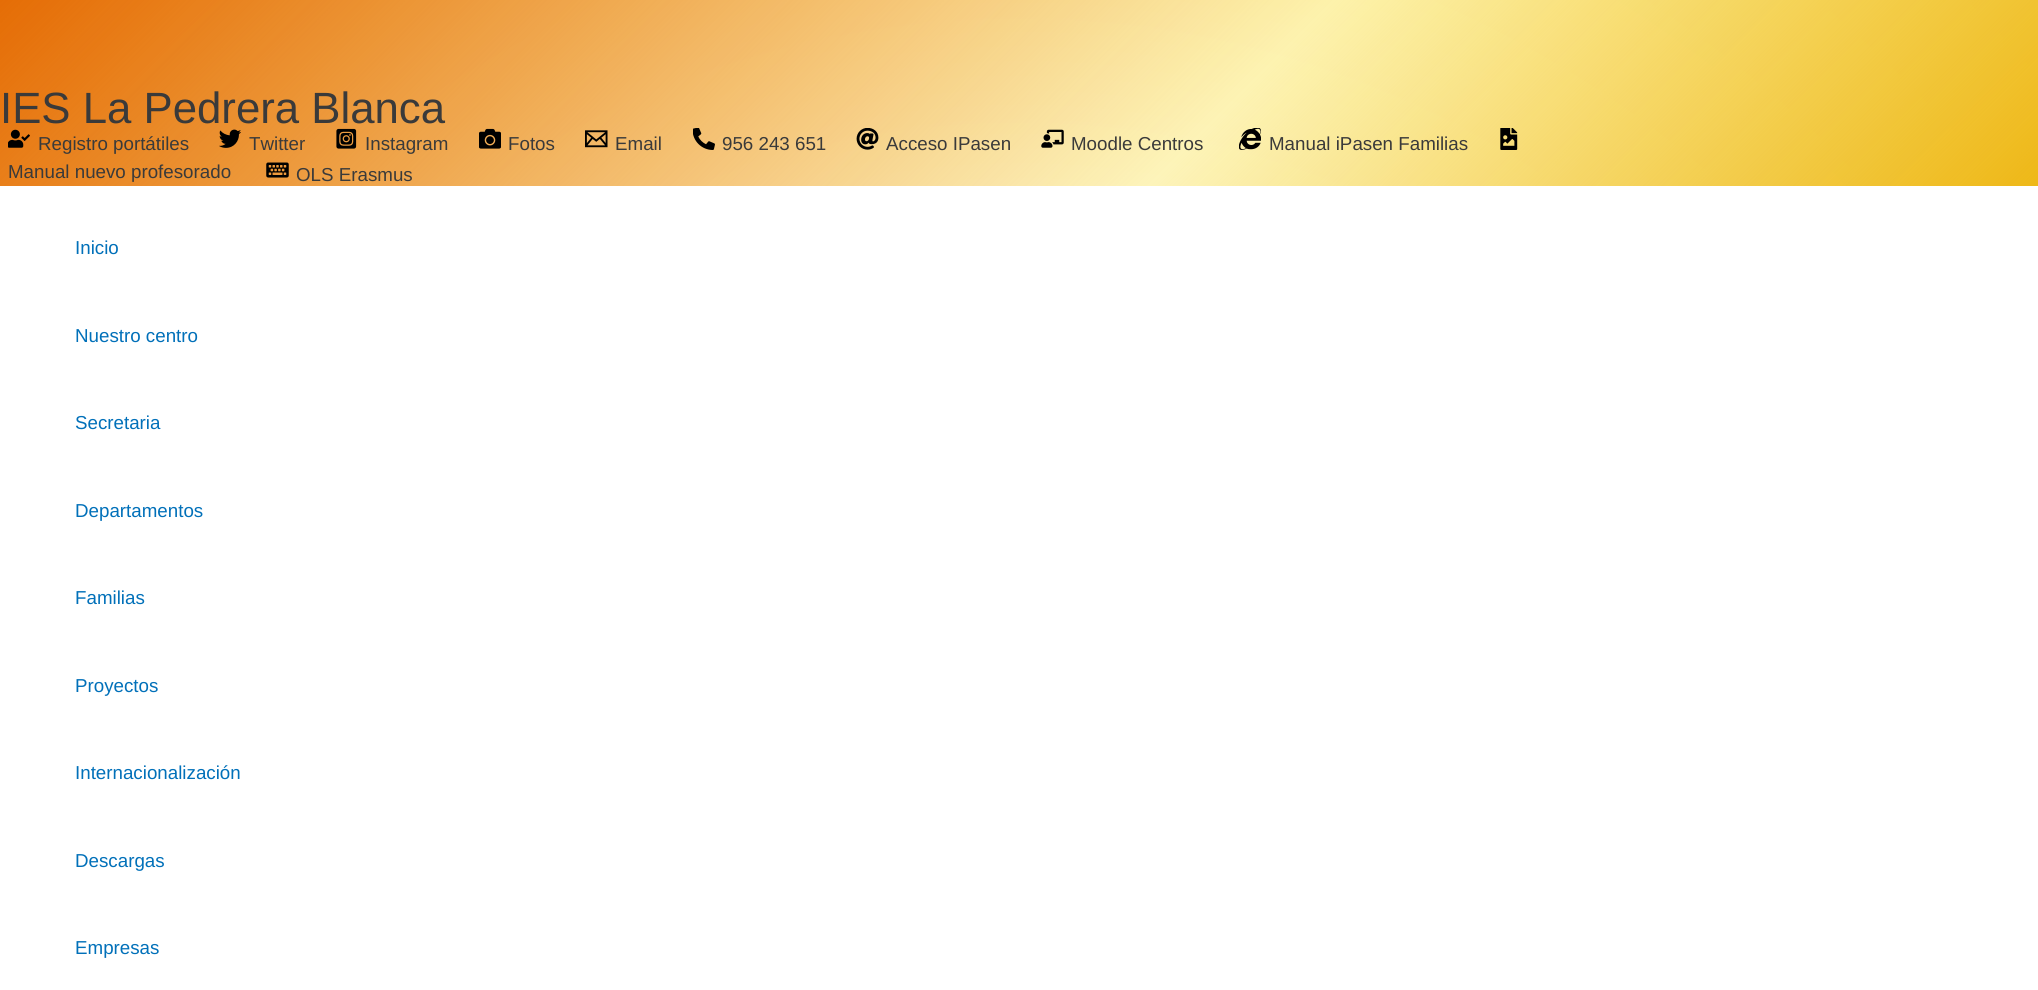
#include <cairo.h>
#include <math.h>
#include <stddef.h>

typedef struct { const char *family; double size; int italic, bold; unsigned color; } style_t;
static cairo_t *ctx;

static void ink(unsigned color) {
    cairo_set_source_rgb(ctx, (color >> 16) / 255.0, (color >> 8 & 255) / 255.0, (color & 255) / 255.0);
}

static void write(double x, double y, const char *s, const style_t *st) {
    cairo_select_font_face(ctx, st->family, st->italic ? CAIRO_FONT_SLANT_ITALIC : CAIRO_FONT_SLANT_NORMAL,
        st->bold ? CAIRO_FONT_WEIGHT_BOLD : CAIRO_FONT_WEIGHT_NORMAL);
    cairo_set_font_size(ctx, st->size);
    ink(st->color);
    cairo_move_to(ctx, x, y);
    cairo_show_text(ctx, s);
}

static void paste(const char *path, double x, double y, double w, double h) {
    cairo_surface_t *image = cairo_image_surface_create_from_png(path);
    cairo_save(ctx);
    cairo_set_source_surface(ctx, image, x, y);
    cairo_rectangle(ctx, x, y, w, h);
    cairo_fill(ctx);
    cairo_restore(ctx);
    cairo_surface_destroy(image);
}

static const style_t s1 = {"Liberation Sans", 43.75, 0, 0, 0x3a3a3a};
static const style_t s2 = {"Liberation Sans", 18.75, 0, 0, 0x3a3a3a};
static const style_t s3 = {"Liberation Sans", 18.75, 0, 0, 0x0170b9};

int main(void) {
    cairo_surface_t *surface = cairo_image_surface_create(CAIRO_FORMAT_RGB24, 2038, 990);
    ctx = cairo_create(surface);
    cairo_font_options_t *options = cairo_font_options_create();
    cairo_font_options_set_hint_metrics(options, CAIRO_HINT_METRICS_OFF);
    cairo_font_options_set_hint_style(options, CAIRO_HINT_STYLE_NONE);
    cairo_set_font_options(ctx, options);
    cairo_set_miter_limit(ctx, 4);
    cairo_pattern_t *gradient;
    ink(0xffffff);
    cairo_paint(ctx);
    gradient = cairo_pattern_create_radial(0, 0, 0, 0, 0, 1);
    cairo_pattern_set_matrix(gradient, &(cairo_matrix_t){1.0 / 1442, 0, 0, 1.0 / 1564, -1.0 * 1019 / 1442, -1.0 * 1106 / 1564});
    cairo_pattern_add_color_stop_rgba(gradient, 0, 1, 0.992, 0.98, 1);
    cairo_pattern_add_color_stop_rgba(gradient, 1, 0.988, 0.933, 0.561, 1);
    cairo_set_source(ctx, gradient);
    cairo_pattern_destroy(gradient);
    cairo_rectangle(ctx, 0, 0, 2038, 186);
    cairo_fill(ctx);
    gradient = cairo_pattern_create_linear(463, -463, 1576, 649);
    cairo_pattern_add_color_stop_rgba(gradient, 0, 0.898, 0.427, 0.024, 1);
    cairo_pattern_add_color_stop_rgba(gradient, 0.6, 0.898, 0.427, 0.024, 0);
    cairo_pattern_add_color_stop_rgba(gradient, 0.6, 0.933, 0.722, 0.094, 0);
    cairo_pattern_add_color_stop_rgba(gradient, 1, 0.933, 0.722, 0.094, 1);
    cairo_set_source(ctx, gradient);
    cairo_pattern_destroy(gradient);
    cairo_rectangle(ctx, 0, 0, 2038, 186);
    cairo_fill(ctx);
    write(0, 123, "IES La Pedrera Blanca", &s1);
    paste("pic1.png", 8, 129, 22, 19);
    write(38, 150, "Registro portátiles", &s2);
    paste("pic2.png", 219, 129, 22, 19);
    write(249, 150, "Twitter", &s2);
    paste("pic3.png", 336, 128, 21, 21);
    write(365, 150, "Instagram", &s2);
    paste("pic4.png", 479, 128, 22, 21);
    write(508, 150, "Fotos", &s2);
    paste("pic5.png", 585, 130, 23, 18);
    write(615, 150, "Email", &s2);
    paste("pic6.png", 693, 128, 22, 22);
    write(722, 150, "956 243 651", &s2);
    paste("pic7.png", 856, 128, 23, 22);
    write(886, 150, "Acceso IPasen", &s2);
    paste("pic8.png", 1041, 129, 23, 19);
    write(1071, 150, "Moodle Centros", &s2);
    paste("pic9.png", 1239, 128, 22, 22);
    write(1269, 150, "Manual iPasen Familias", &s2);
    paste("pic10.png", 1500, 128, 18, 22);
    write(8, 178, "Manual nuevo profesorado", &s2);
    paste("pic11.png", 266, 162, 23, 16);
    write(296, 181, "OLS Erasmus", &s2);
    write(75, 254, "Inicio", &s3);
    write(75, 342, "Nuestro centro", &s3);
    write(75, 429, "Secretaria", &s3);
    write(75, 517, "Departamentos", &s3);
    write(75, 604, "Familias", &s3);
    write(75, 692, "Proyectos", &s3);
    write(75, 779, "Internacionalización", &s3);
    write(75, 867, "Descargas", &s3);
    write(75, 954, "Empresas", &s3);
    cairo_surface_write_to_png(surface, "screenshot.png");
    cairo_font_options_destroy(options);
    cairo_destroy(ctx);
    cairo_surface_destroy(surface);
    return 0;
}
